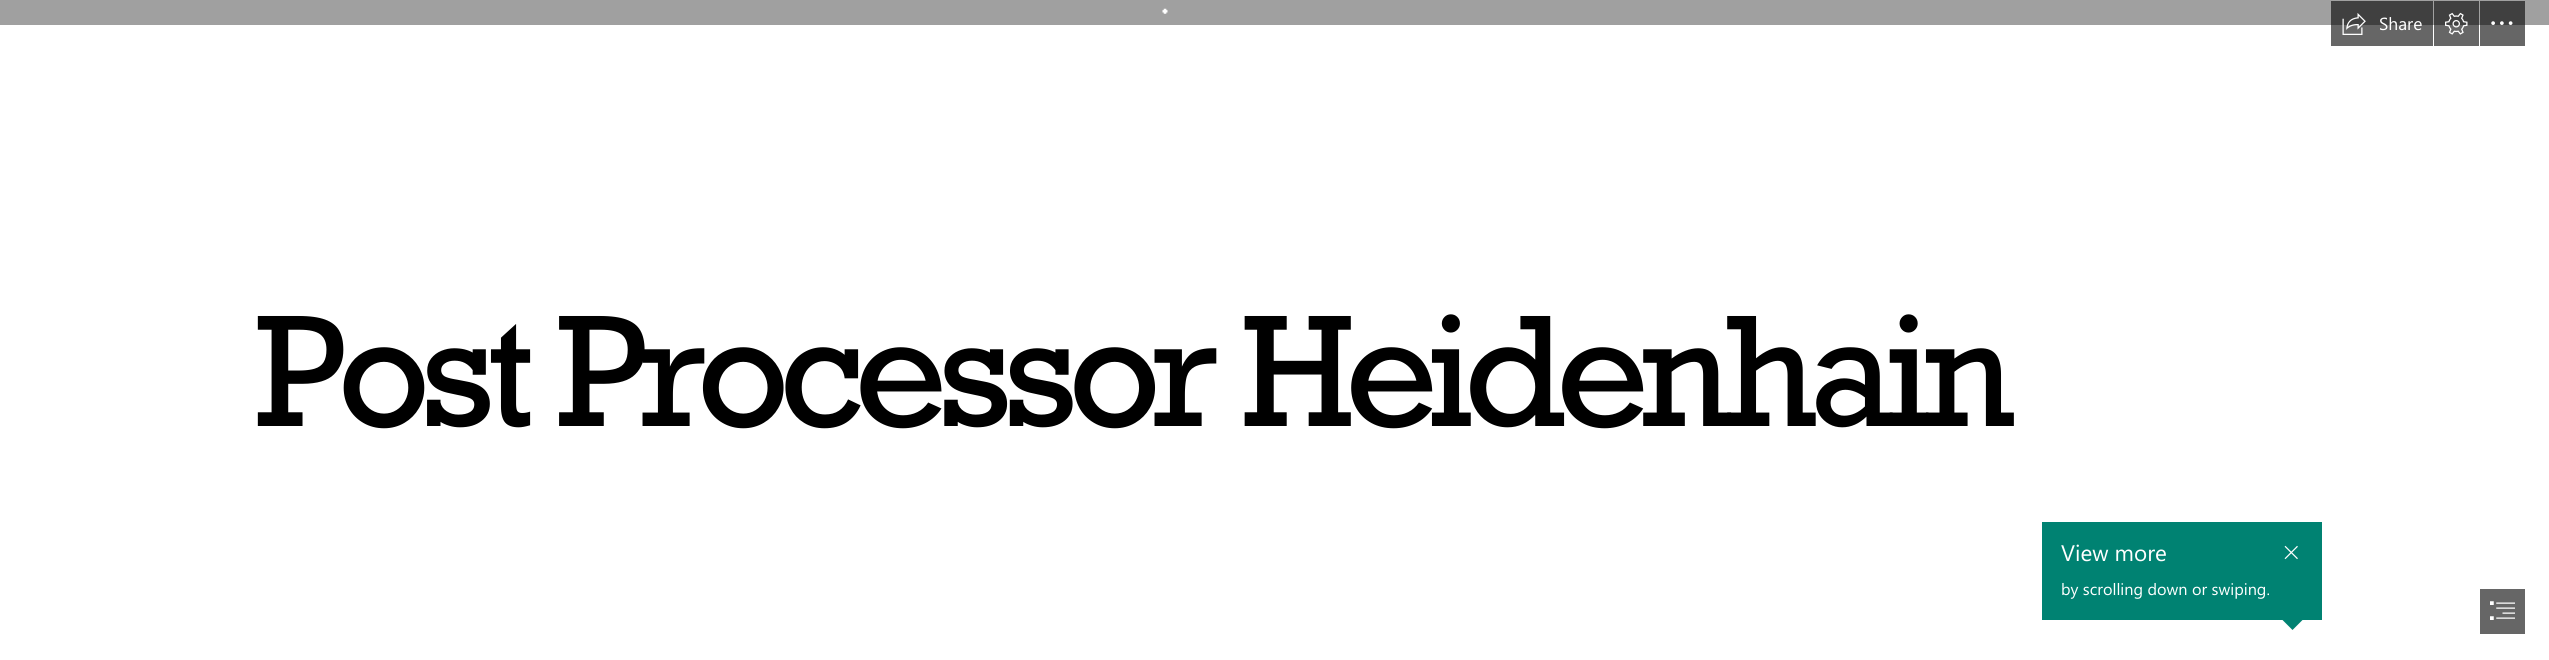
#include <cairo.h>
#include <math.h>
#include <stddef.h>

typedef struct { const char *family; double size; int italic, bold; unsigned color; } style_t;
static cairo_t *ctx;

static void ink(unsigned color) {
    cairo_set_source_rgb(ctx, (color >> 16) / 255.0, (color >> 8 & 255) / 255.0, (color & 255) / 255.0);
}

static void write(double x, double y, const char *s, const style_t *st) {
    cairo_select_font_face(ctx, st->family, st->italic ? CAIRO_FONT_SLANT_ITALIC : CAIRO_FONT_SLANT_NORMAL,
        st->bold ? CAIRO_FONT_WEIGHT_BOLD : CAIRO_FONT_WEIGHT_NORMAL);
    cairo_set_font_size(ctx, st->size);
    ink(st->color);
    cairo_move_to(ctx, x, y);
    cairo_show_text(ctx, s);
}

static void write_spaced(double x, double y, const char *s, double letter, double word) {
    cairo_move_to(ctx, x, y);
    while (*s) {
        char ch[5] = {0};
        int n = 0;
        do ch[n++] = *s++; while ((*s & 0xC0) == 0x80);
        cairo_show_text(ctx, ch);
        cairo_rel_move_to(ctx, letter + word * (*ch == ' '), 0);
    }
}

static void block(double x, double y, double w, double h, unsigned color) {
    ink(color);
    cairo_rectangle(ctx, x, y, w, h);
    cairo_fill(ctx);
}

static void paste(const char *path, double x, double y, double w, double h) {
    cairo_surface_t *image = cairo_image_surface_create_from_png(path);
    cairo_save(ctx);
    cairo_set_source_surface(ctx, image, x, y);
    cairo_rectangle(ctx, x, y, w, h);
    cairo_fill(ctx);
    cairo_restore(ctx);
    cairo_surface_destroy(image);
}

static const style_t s1 = {"Segoe UI", 17.5, 0, 0, 0xffffff};
static const style_t s2 = {"Segoe UI", 22.5, 0, 0, 0xffffff};
static const style_t s3 = {"Segoe UI", 16.25, 0, 0, 0xffffff};

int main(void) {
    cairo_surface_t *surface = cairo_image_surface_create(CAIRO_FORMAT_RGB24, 2549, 660);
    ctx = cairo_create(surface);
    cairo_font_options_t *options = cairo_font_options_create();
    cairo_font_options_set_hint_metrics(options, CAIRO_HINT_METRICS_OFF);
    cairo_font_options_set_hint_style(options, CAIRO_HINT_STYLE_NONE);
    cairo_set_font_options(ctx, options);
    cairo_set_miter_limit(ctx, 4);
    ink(0xffffff);
    cairo_paint(ctx);
    block(0, 0, 2549, 25, 0xa0a0a0);
    block(2331, 1, 102, 24, 0x404040);
    block(2331, 25, 102, 21, 0x666666);
    paste("pic1.png", 2342, 13, 24, 22);
    write(2379, 30, "Share", &s1);
    block(2434, 1, 45, 24, 0x404040);
    block(2434, 25, 45, 21, 0x666666);
    paste("pic2.png", 2445, 12, 23, 23);
    block(2480, 1, 45, 24, 0x404040);
    paste("pic3.png", 2491, 21, 22, 4);
    paste("pic4.png", 1162, 8, 6, 6);
    block(2480, 25, 45, 21, 0x666666);
    cairo_select_font_face(ctx, "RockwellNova", CAIRO_FONT_SLANT_NORMAL, CAIRO_FONT_WEIGHT_NORMAL);
    cairo_set_font_size(ctx, 149.5);
    ink(0x000000);
    write_spaced(255, 426, "Post Processor Heidenhain", -9.5, 0);
    block(2042, 522, 280, 98, 0x008272);
    write(2061, 561, "View more", &s2);
    write(2061, 595, "by scrolling down or swiping.", &s3);
    paste("pic5.png", 2284, 545, 14, 15);
    ink(0x008272);
    cairo_new_path(ctx);
    cairo_move_to(ctx, 2282.5, 620);
    cairo_line_to(ctx, 2302.5, 620);
    cairo_line_to(ctx, 2292.5, 630);
    cairo_close_path(ctx);
    cairo_fill(ctx);
    block(2480, 589, 45, 45, 0x666666);
    paste("pic6.png", 2490, 601, 25, 19);
    cairo_surface_write_to_png(surface, "screenshot.png");
    cairo_font_options_destroy(options);
    cairo_destroy(ctx);
    cairo_surface_destroy(surface);
    return 0;
}
